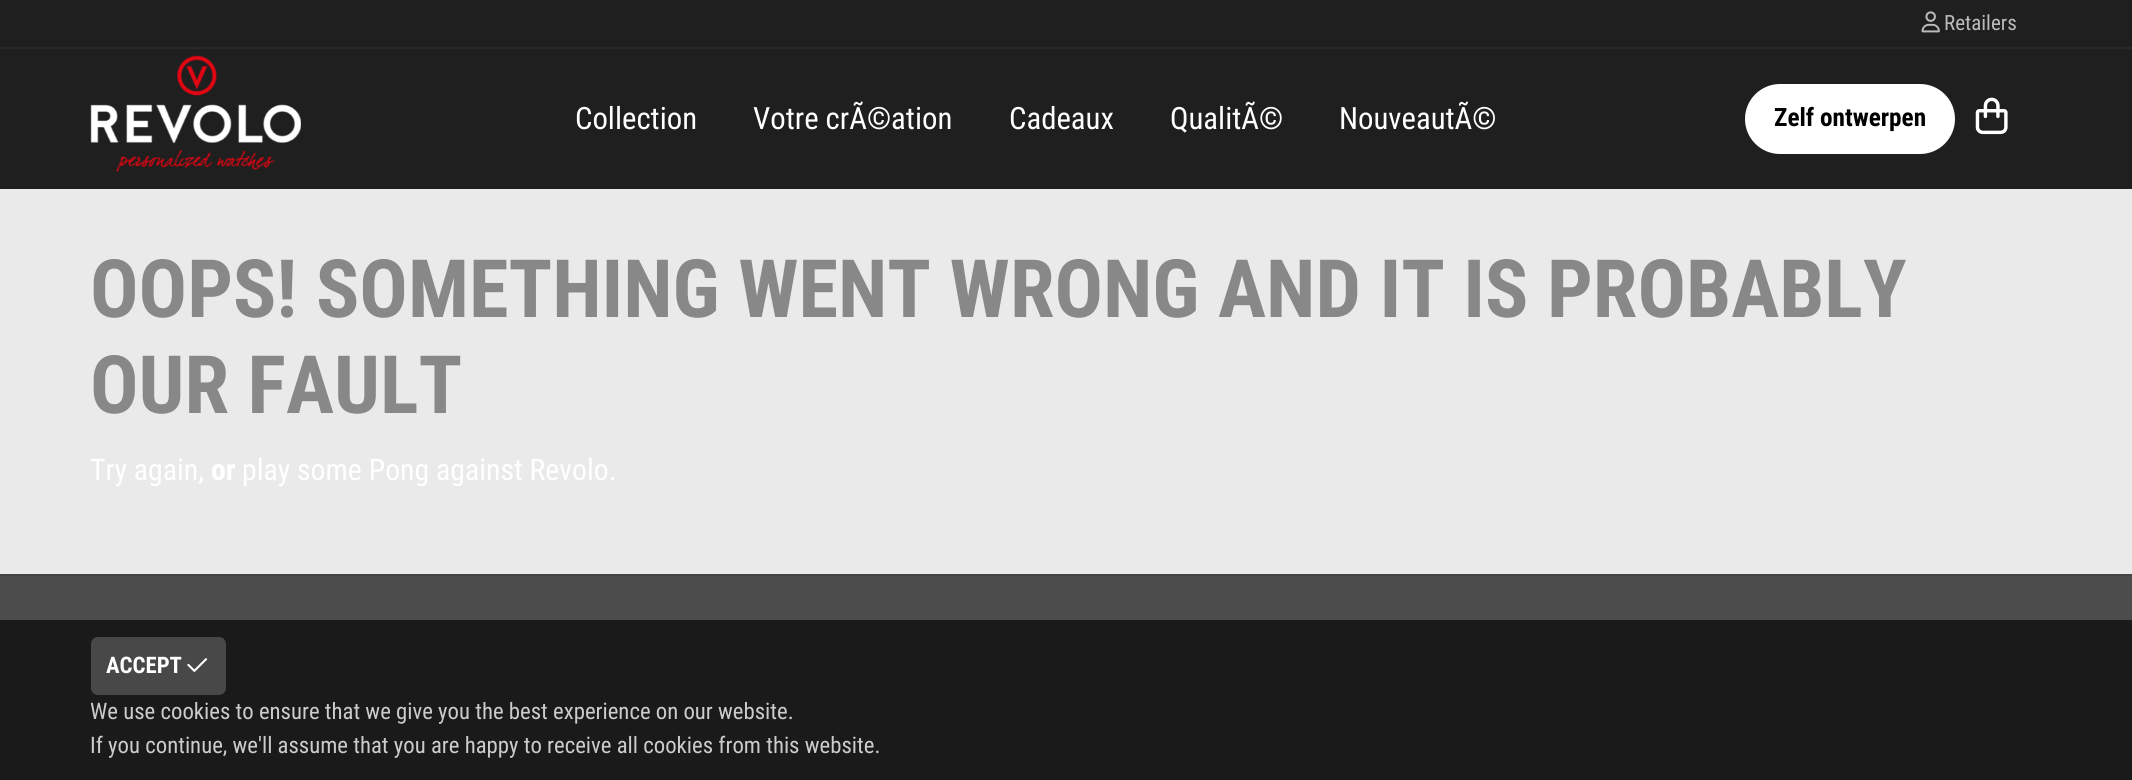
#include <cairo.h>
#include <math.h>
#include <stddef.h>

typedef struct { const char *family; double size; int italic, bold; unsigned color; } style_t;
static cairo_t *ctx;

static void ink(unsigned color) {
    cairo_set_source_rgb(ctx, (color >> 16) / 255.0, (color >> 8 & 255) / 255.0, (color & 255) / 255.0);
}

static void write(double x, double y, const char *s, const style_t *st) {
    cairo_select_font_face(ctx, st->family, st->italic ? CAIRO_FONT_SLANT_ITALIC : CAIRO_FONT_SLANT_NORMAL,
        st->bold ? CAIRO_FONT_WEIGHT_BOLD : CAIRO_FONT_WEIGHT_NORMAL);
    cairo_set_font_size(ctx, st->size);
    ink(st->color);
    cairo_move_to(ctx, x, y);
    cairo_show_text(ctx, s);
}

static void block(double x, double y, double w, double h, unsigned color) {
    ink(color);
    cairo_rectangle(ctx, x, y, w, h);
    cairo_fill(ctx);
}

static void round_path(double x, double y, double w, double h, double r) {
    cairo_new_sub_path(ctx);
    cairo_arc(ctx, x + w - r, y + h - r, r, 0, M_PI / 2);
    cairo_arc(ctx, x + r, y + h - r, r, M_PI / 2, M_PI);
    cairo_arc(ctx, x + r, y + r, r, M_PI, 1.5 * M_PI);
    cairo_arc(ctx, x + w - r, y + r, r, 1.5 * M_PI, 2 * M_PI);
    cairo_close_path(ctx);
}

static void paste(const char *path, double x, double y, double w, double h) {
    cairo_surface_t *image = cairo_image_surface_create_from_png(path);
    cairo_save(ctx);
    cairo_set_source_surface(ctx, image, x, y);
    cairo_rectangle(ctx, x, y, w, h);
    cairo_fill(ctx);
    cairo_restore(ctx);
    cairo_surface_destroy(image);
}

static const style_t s1 = {"Roboto Condensed", 21, 0, 0, 0xbbbbbb};
static const style_t s2 = {"Roboto Condensed", 30.75, 0, 0, 0xffffff};
static const style_t s3 = {"Roboto Condensed", 25.25, 0, 1, 0x000000};
static const style_t s4 = {"Roboto Condensed", 80.5, 0, 1, 0x888888};
static const style_t s5 = {"Roboto Condensed", 29.75, 0, 0, 0xffffff};
static const style_t s6 = {"Roboto Condensed", 29.75, 0, 1, 0xffffff};
static const style_t s7 = {"Roboto Condensed", 22.75, 0, 1, 0xffffff};
static const style_t s8 = {"Roboto Condensed", 22.75, 0, 0, 0xcccccc};

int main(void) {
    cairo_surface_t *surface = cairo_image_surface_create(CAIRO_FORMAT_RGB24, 2132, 780);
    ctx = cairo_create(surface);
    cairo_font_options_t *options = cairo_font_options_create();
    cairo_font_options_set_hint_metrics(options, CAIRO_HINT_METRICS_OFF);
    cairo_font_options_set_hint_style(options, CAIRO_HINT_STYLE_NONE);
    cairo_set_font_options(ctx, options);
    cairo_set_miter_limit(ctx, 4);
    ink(0x4c4c4c);
    cairo_paint(ctx);
    block(0, 0, 2132, 47, 0x1f1f1f);
    block(0, 47, 2132, 2, 0x282828);
    paste("pic1.png", 1921, 11, 19, 22);
    write(1944, 30, "Retailers", &s1);
    block(0, 49, 2132, 140, 0x1f1f1f);
    paste("pic2.png", 90, 55, 211, 117);
    write(575, 129, "Collection", &s2);
    write(753, 129, "Votre crÃ©ation", &s2);
    write(1009, 129, "Cadeaux", &s2);
    write(1170, 129, "QualitÃ©", &s2);
    write(1339, 129, "NouveautÃ©", &s2);
    round_path(1745, 84, 210, 70, 35);
    cairo_fill(ctx);
    write(1774, 126, "Zelf ontwerpen", &s3);
    paste("pic3.png", 1975, 97, 33, 38);
    block(0, 189, 2132, 385, 0xeaeaea);
    write(90, 317, "OOPS! SOMETHING WENT WRONG AND IT IS PROBABLY", &s4);
    write(90, 413, "OUR FAULT", &s4);
    write(90, 480, "Try again,", &s5);
    write(211, 480, "or", &s6);
    write(242, 480, "play some Pong against Revolo.", &s5);
    block(0, 574, 2132, 2, 0x444444);
    block(0, 620, 2132, 160, 0x1a1a1a);
    ink(0x484848);
    round_path(92, 638, 133, 56, 6);
    cairo_fill_preserve(ctx);
    cairo_stroke(ctx);
    write(106, 673, "ACCEPT", &s7);
    paste("pic4.png", 187, 658, 21, 14);
    write(90, 719, "We use cookies to ensure that we give you the best experience on our website.", &s8);
    write(90, 753, "If you continue, we'll assume that you are happy to receive all cookies from this website.", &s8);
    cairo_surface_write_to_png(surface, "screenshot.png");
    cairo_font_options_destroy(options);
    cairo_destroy(ctx);
    cairo_surface_destroy(surface);
    return 0;
}
